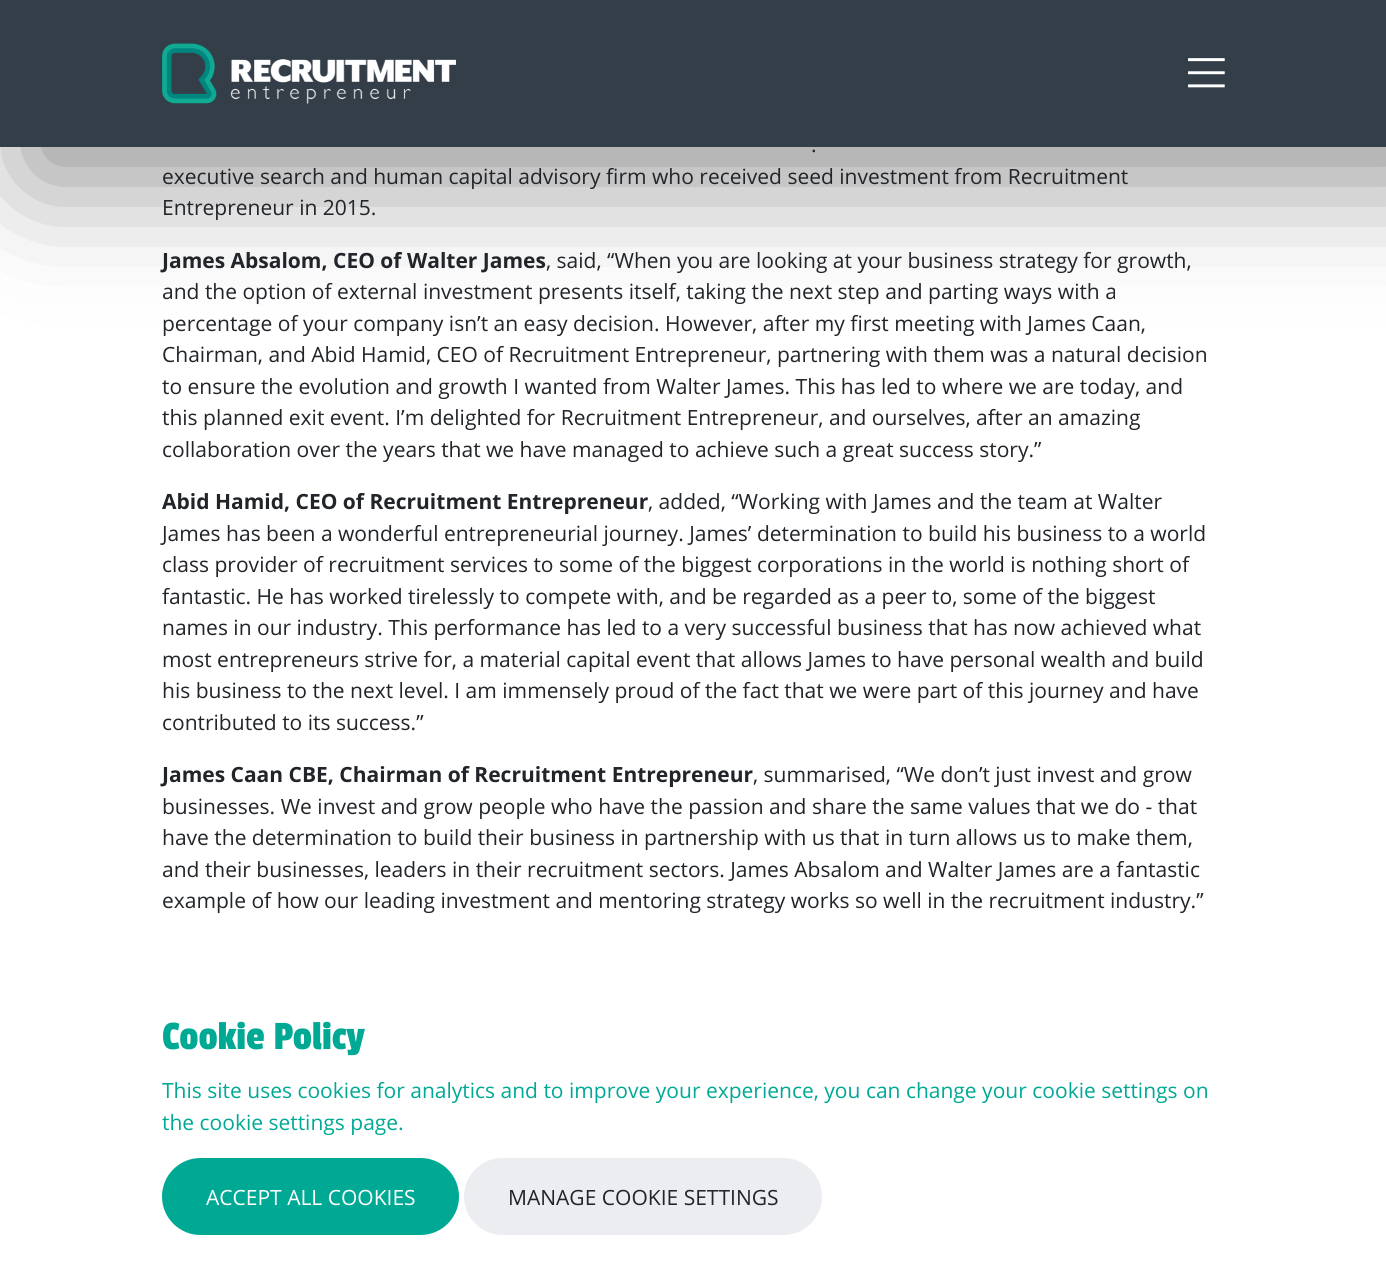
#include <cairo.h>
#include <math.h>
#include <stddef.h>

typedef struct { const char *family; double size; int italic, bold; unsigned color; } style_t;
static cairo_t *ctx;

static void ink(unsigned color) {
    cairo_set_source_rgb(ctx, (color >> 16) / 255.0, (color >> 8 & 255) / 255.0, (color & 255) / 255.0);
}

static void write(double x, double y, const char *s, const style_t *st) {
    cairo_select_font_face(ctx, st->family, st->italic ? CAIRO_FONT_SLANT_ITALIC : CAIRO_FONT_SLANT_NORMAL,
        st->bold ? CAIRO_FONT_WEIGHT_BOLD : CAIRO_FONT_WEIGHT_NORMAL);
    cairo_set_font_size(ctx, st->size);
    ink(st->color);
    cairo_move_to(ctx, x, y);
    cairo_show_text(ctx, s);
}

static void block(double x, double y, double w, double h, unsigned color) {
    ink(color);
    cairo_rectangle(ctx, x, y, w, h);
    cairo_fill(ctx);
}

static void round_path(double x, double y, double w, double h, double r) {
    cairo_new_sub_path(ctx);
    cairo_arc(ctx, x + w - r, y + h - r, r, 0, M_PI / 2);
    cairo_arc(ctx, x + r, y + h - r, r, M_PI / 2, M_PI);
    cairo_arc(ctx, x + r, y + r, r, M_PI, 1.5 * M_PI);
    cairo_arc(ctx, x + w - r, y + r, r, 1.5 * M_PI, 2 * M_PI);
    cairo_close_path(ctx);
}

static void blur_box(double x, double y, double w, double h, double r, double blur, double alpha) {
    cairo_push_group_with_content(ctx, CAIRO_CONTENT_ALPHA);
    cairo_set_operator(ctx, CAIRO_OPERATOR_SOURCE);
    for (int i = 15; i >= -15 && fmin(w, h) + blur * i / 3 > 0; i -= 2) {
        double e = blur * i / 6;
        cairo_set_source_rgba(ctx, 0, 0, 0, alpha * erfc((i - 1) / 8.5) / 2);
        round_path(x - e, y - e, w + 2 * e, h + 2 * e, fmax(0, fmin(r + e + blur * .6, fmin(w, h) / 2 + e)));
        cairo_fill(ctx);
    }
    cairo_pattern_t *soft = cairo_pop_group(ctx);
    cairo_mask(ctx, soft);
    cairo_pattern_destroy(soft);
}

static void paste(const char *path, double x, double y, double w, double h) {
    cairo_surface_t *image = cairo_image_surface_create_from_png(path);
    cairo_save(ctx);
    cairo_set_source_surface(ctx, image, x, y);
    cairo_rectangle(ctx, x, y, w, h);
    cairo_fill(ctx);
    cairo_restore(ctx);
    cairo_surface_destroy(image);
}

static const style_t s1 = {"Open Sans", 21, 0, 0, 0x212529};
static const style_t s2 = {"Open Sans", 21, 0, 1, 0x212529};
static const style_t s3 = {"Passion One", 42, 0, 0, 0x00a994};
static const style_t s4 = {"Open Sans", 21, 0, 0, 0x00a994};
static const style_t s5 = {"Open Sans", 21, 0, 0, 0xffffff};

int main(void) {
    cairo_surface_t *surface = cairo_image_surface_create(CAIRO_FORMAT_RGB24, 1386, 1286);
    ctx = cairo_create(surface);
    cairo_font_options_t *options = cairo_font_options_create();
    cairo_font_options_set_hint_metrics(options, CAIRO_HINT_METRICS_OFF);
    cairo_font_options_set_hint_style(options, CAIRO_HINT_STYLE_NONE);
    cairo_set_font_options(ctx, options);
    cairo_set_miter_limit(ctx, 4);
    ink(0xffffff);
    cairo_paint(ctx);
    ink(0x000000);
    blur_box(30, 30, 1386, 147, 0, 60, 0.45);
    block(0, 0, 1386, 147, 0x333e48);
    paste("pic1.png", 162, 43, 294, 61);
    paste("pic2.png", 1188, 58, 37, 30);
    write(811, 152, ".", &s1);
    write(162, 184, "executive search and human capital advisory firm who received seed investment from Recruitment", &s1);
    write(162, 215, "Entrepreneur in 2015.", &s1);
    write(162, 268, "James Absalom, CEO of Walter James", &s2);
    write(546, 268, ", said, “When you are looking at your business strategy for growth,", &s1);
    write(162, 299, "and the option of external investment presents itself, taking the next step and parting ways with a", &s1);
    write(162, 331, "percentage of your company isn’t an easy decision. However, after my first meeting with James Caan,", &s1);
    write(162, 362, "Chairman, and Abid Hamid, CEO of Recruitment Entrepreneur, partnering with them was a natural decision", &s1);
    write(162, 394, "to ensure the evolution and growth I wanted from Walter James. This has led to where we are today, and", &s1);
    write(162, 425, "this planned exit event. I’m delighted for Recruitment Entrepreneur, and ourselves, after an amazing", &s1);
    write(162, 457, "collaboration over the years that we have managed to achieve such a great success story.”", &s1);
    write(162, 509, "Abid Hamid, CEO of Recruitment Entrepreneur", &s2);
    write(648, 509, ", added, “Working with James and the team at Walter", &s1);
    write(162, 541, "James has been a wonderful entrepreneurial journey. James’ determination to build his business to a world", &s1);
    write(162, 572, "class provider of recruitment services to some of the biggest corporations in the world is nothing short of", &s1);
    write(162, 604, "fantastic. He has worked tirelessly to compete with, and be regarded as a peer to, some of the biggest", &s1);
    write(162, 635, "names in our industry. This performance has led to a very successful business that has now achieved what", &s1);
    write(162, 667, "most entrepreneurs strive for, a material capital event that allows James to have personal wealth and build", &s1);
    write(162, 698, "his business to the next level. I am immensely proud of the fact that we were part of this journey and have", &s1);
    write(162, 730, "contributed to its success.”", &s1);
    write(162, 782, "James Caan CBE, Chairman of Recruitment Entrepreneur", &s2);
    write(753, 782, ", summarised, “We don’t just invest and grow", &s1);
    write(162, 814, "businesses. We invest and grow people who have the passion and share the same values that we do - that", &s1);
    write(162, 845, "have the determination to build their business in partnership with us that in turn allows us to make them,", &s1);
    write(162, 877, "and their businesses, leaders in their recruitment sectors. James Absalom and Walter James are a fantastic", &s1);
    write(162, 908, "example of how our leading investment and mentoring strategy works so well in the recruitment industry.”", &s1);
    write(162, 1049, "Cookie Policy", &s3);
    write(162, 1098, "This site uses cookies for analytics and to improve your experience, you can change your cookie settings on", &s4);
    write(162, 1130, "the cookie settings page.", &s4);
    round_path(163, 1159, 295, 75, 37.5);
    cairo_fill_preserve(ctx);
    cairo_stroke(ctx);
    write(206, 1205, "ACCEPT ALL COOKIES", &s5);
    ink(0xecedf1);
    round_path(465, 1159, 356, 75, 37.5);
    cairo_fill_preserve(ctx);
    cairo_stroke(ctx);
    write(508, 1205, "MANAGE COOKIE SETTINGS", &s1);
    cairo_surface_write_to_png(surface, "screenshot.png");
    cairo_font_options_destroy(options);
    cairo_destroy(ctx);
    cairo_surface_destroy(surface);
    return 0;
}
